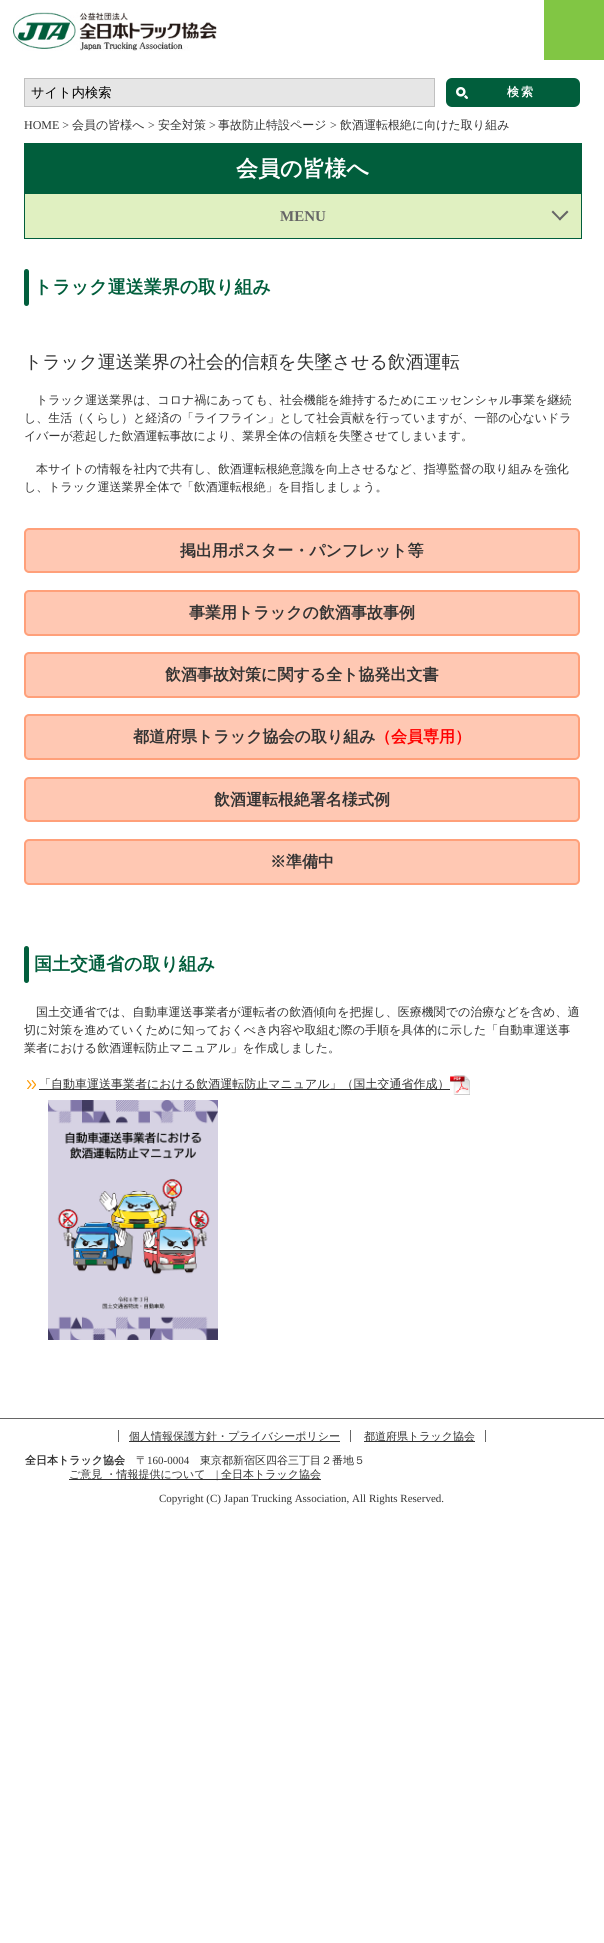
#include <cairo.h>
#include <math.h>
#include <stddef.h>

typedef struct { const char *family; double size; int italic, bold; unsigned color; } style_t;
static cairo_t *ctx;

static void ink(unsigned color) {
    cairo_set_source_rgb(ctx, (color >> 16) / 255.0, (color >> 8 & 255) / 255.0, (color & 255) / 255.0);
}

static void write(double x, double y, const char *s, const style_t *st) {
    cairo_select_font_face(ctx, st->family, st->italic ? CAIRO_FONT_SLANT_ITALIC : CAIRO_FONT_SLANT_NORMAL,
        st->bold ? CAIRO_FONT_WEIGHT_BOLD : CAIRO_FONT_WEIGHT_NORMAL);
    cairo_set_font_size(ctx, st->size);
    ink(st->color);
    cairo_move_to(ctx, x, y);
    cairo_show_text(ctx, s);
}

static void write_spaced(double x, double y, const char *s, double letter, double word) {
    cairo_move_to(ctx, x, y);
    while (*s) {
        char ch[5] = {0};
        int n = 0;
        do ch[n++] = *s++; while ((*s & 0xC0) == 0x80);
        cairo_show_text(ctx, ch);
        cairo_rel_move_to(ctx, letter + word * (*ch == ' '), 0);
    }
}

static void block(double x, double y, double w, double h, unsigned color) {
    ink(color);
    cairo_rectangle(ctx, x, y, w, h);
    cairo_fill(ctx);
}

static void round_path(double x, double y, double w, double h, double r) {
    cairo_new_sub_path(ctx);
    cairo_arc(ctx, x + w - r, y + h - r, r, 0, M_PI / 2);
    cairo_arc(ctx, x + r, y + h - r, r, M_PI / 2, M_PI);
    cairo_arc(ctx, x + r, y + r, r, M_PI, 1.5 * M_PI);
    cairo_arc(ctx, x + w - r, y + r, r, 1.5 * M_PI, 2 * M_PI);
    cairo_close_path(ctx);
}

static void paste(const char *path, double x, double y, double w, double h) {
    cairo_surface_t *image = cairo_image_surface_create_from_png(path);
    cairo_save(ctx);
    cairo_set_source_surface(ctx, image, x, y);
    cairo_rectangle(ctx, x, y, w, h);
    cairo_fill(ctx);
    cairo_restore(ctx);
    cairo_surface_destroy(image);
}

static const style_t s1 = {"WenQuanYi Zen Hei Medium", 13.25, 0, 0, 0x000000};
static const style_t s2 = {"Liberation Serif", 12, 0, 0, 0x333333};
static const style_t s3 = {"WenQuanYi Zen Hei Medium", 12, 0, 0, 0x333333};
static const style_t s4 = {"WenQuanYi Zen Hei", 22, 0, 1, 0xffffff};
static const style_t s5 = {"Liberation Serif", 15, 0, 1, 0x666666};
static const style_t s6 = {"WenQuanYi Zen Hei", 18, 0, 1, 0x015e3c};
static const style_t s7 = {"WenQuanYi Zen Hei Medium", 18, 0, 0, 0x333333};
static const style_t s8 = {"WenQuanYi Zen Hei", 16, 0, 1, 0x333333};
static const style_t s9 = {"WenQuanYi Zen Hei", 16, 0, 1, 0xff0000};
static const style_t s10 = {"WenQuanYi Zen Hei Medium", 11, 0, 0, 0x333333};
static const style_t s11 = {"WenQuanYi Zen Hei", 11, 0, 1, 0x333333};
static const style_t s12 = {"Liberation Serif", 11, 0, 0, 0x333333};

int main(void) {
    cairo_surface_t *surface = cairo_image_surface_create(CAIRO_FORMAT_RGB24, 604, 1943);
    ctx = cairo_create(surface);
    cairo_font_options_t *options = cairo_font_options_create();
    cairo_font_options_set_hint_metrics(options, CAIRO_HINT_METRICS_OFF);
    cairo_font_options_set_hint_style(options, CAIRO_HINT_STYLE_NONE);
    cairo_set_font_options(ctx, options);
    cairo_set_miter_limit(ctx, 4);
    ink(0xffffff);
    cairo_paint(ctx);
    paste("pic1.png", 13, 12, 204, 39);
    block(544, 0, 60, 60, 0x81c644);
    ink(0xe6e6e6);
    cairo_rectangle(ctx, 24.5, 78.5, 410, 28);
    cairo_fill_preserve(ctx);
    ink(0xc0c0c0);
    cairo_set_line_width(ctx, 1);
    cairo_stroke(ctx);
    write(31, 97, "サイト内検索", &s1);
    ink(0x015e3c);
    round_path(446, 78, 134, 29, 6);
    cairo_fill(ctx);
    paste("pic2.png", 456, 87, 12, 12);
    cairo_select_font_face(ctx, "WenQuanYi Zen Hei", CAIRO_FONT_SLANT_NORMAL, CAIRO_FONT_WEIGHT_BOLD);
    cairo_set_font_size(ctx, 12);
    ink(0xffffff);
    write_spaced(507, 96, "検索", 2, 0);
    write(24, 129, "HOME >", &s2);
    write(72, 129, "会員の皆様へ", &s3);
    write(148, 129, ">", &s2);
    write(158, 129, "安全対策", &s3);
    write(209, 129, ">", &s2);
    write(218, 129, "事故防止特設ページ", &s3);
    write(330, 129, ">", &s2);
    write(340, 129, "飲酒運転根絶に向けた取り組み", &s3);
    block(24, 143, 558, 1, 0x015e3c);
    block(581, 143, 1, 96, 0x015e3c);
    block(24, 143, 1, 96, 0x015e3c);
    block(25, 144, 556, 50, 0x015e3c);
    write(236, 176, "会員の皆様へ", &s4);
    block(25, 194, 556, 44, 0xe0f0c1);
    block(25, 238, 556, 1, 0x015e3c);
    write(280, 221, "MENU", &s5);
    cairo_new_path(ctx);
    cairo_move_to(ctx, 567, 210.5);
    cairo_line_to(ctx, 568.5, 212);
    cairo_line_to(ctx, 560, 220.5);
    cairo_line_to(ctx, 558.5, 219);
    cairo_close_path(ctx);
    cairo_fill(ctx);
    cairo_new_path(ctx);
    cairo_move_to(ctx, 553, 210.5);
    cairo_line_to(ctx, 561, 219);
    cairo_line_to(ctx, 560, 220.5);
    cairo_line_to(ctx, 551.5, 212);
    cairo_close_path(ctx);
    cairo_fill(ctx);
    ink(0x015e3c);
    round_path(24, 269, 5, 37, 2.5);
    cairo_fill(ctx);
    write(34, 293, "トラック運送業界の取り組み", &s6);
    write(24, 368, "トラック運送業界の社会的信頼を失墜させる飲酒運転", &s7);
    write(36, 404, "トラック運送業界は、コロナ禍にあっても、社会機能を維持するためにエッセンシャル事業を継続", &s3);
    write(24, 422, "し、生活（くらし）と経済の「ライフライン」として社会貢献を行っていますが、一部の心ないドラ", &s3);
    write(24, 440, "イバーが惹起した飲酒運転事故により、業界全体の信頼を失墜させてしまいます。", &s3);
    write(36, 473, "本サイトの情報を社内で共有し、飲酒運転根絶意識を向上させるなど、指導監督の取り組みを強化", &s3);
    write(24, 491, "し、トラック運送業界全体で「飲酒運転根絶」を目指しましょう。", &s3);
    ink(0xffc8b3);
    round_path(25, 529, 554, 43, 4);
    cairo_fill_preserve(ctx);
    ink(0xffa07a);
    cairo_set_line_width(ctx, 2);
    cairo_stroke(ctx);
    write(180, 556, "掲出用ポスター・パンフレット等", &s8);
    ink(0xffc8b3);
    round_path(25, 591, 554, 44, 4);
    cairo_fill_preserve(ctx);
    ink(0xffa07a);
    cairo_stroke(ctx);
    write(189, 618, "事業用トラックの飲酒事故事例", &s8);
    ink(0xffc8b3);
    round_path(25, 653, 554, 44, 4);
    cairo_fill_preserve(ctx);
    ink(0xffa07a);
    cairo_stroke(ctx);
    write(165, 680, "飲酒事故対策に関する全ト協発出文書", &s8);
    ink(0xffc8b3);
    round_path(25, 715, 554, 44, 4);
    cairo_fill_preserve(ctx);
    ink(0xffa07a);
    cairo_stroke(ctx);
    write(133, 742, "都道府県トラック協会の取り組み", &s8);
    write(375, 742, "（会員専用）", &s9);
    ink(0xffc8b3);
    round_path(25, 778, 554, 43, 4);
    cairo_fill_preserve(ctx);
    ink(0xffa07a);
    cairo_stroke(ctx);
    write(214, 805, "飲酒運転根絶署名様式例", &s8);
    ink(0xffc8b3);
    round_path(25, 840, 554, 44, 4);
    cairo_fill_preserve(ctx);
    ink(0xffa07a);
    cairo_stroke(ctx);
    write(270, 867, "※準備中", &s8);
    ink(0x015e3c);
    round_path(24, 946, 5, 37, 2.5);
    cairo_fill(ctx);
    write(34, 970, "国土交通省の取り組み", &s6);
    write(36, 1016, "国土交通省では、自動車運送事業者が運転者の飲酒傾向を把握し、医療機関での治療などを含め、適", &s3);
    write(24, 1034, "切に対策を進めていくために知っておくべき内容や取組む際の手順を具体的に示した「自動車運送事", &s3);
    write(24, 1052, "業者における飲酒運転防止マニュアル」を作成しました。", &s3);
    paste("pic3.png", 27, 1080, 9, 9);
    block(39, 1089, 411, 1, 0x333333);
    write(39, 1088, "「自動車運送事業者における飲酒運転防止マニュアル」（国土交通省作成）", &s3);
    paste("pic4.png", 450, 1075, 20, 20);
    paste("pic5.png", 48, 1100, 170, 240);
    block(0, 1418, 604, 1, 0x666666);
    block(129, 1441, 211, 1, 0x333333);
    write(129, 1440, "個人情報保護方針・プライバシーポリシー", &s10);
    block(350, 1430, 1, 12, 0x666666);
    block(118, 1430, 1, 12, 0x666666);
    block(364, 1441, 111, 1, 0x333333);
    write(364, 1440, "都道府県トラック協会", &s10);
    block(485, 1430, 1, 12, 0x666666);
    write(25, 1464, "全日本トラック協会", &s11);
    write(136, 1464, "〒", &s10);
    write(147, 1464, "160-0004", &s12);
    write(200, 1464, "東京都新宿区四谷三丁目２番地５", &s10);
    block(69, 1479, 252, 1, 0x333333);
    write(69, 1478, "ご意見 ・情報提供について", &s10);
    write(216, 1478, "|", &s12);
    write(221, 1478, "全日本トラック協会", &s10);
    write(159, 1502, "Copyright (C) Japan Trucking Association, All Rights Reserved.", &s12);
    cairo_surface_write_to_png(surface, "screenshot.png");
    cairo_font_options_destroy(options);
    cairo_destroy(ctx);
    cairo_surface_destroy(surface);
    return 0;
}
